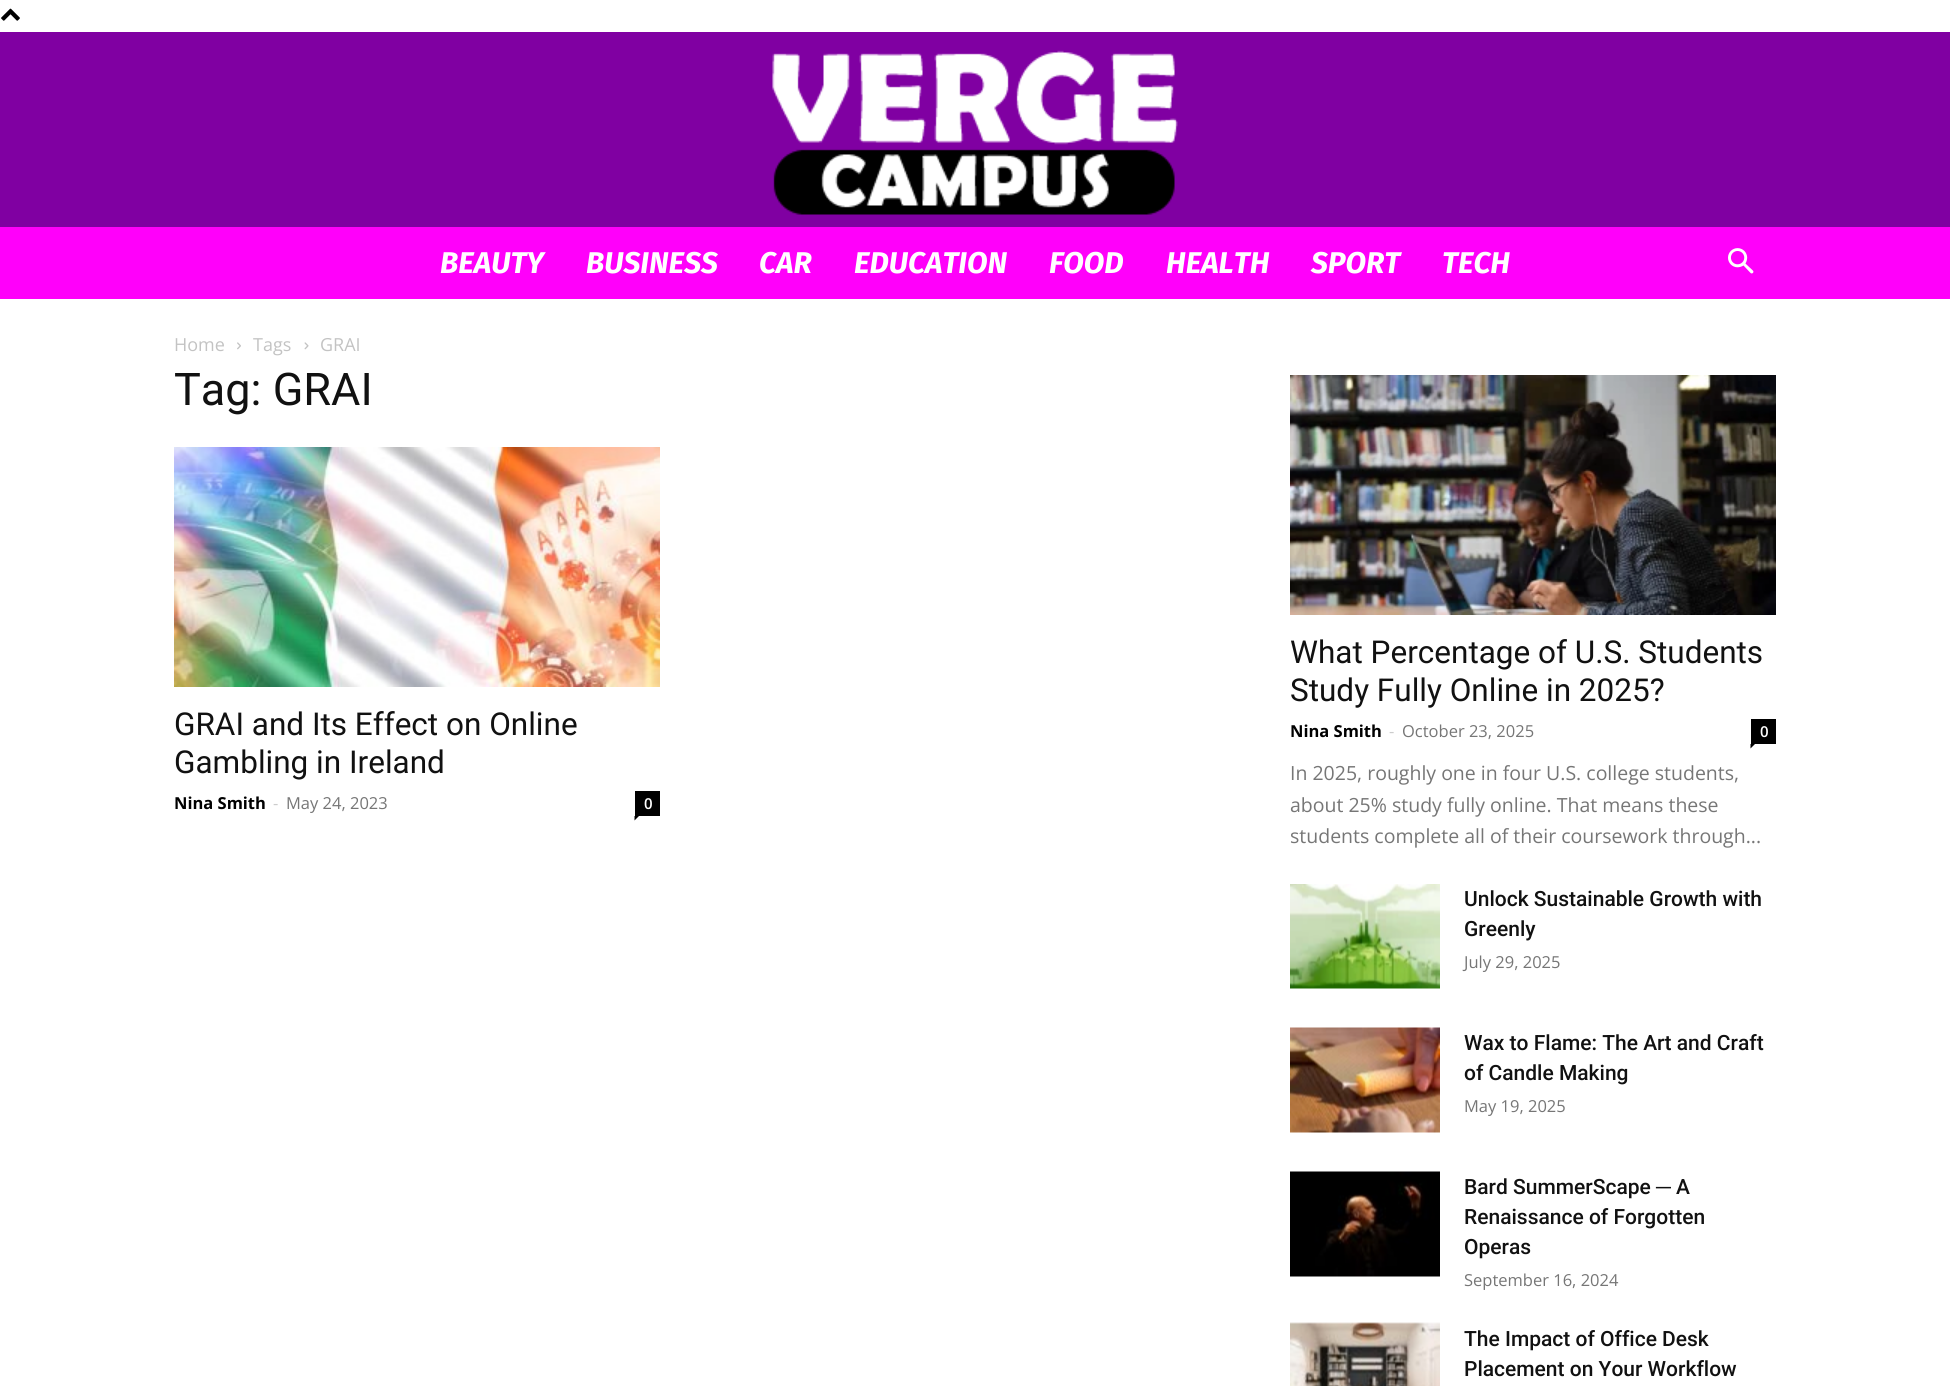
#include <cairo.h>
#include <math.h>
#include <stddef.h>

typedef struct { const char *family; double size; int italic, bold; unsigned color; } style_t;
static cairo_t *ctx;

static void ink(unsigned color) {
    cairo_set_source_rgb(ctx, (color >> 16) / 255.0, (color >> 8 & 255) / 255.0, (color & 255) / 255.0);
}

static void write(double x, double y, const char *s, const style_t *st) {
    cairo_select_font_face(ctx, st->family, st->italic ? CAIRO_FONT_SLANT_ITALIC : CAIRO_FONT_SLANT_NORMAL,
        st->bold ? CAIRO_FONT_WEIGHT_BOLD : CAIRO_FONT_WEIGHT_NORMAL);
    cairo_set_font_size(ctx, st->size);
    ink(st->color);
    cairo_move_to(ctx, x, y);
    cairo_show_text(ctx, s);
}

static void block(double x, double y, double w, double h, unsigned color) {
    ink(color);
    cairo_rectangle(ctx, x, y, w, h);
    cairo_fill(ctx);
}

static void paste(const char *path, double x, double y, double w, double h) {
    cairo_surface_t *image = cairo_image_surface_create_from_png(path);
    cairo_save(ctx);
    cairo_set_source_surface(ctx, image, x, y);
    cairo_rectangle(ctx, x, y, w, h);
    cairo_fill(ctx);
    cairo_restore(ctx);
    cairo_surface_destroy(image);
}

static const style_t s1 = {"Fira Sans", 30, 1, 1, 0xffffff};
static const style_t s2 = {"Open Sans", 18, 0, 0, 0xc3c3c3};
static const style_t s3 = {"Roboto", 45, 0, 0, 0x111111};
static const style_t s4 = {"Roboto", 31.5, 0, 0, 0x111111};
static const style_t s5 = {"Open Sans", 16.5, 0, 1, 0x000000};
static const style_t s6 = {"Open Sans", 16.5, 0, 0, 0xcccccc};
static const style_t s7 = {"Open Sans", 16.5, 0, 0, 0x767676};
static const style_t s8 = {"Open Sans SemiBold", 15, 0, 0, 0xffffff};
static const style_t s9 = {"Open Sans", 19.5, 0, 0, 0x767676};
static const style_t s10 = {"Roboto Medium", 21, 0, 0, 0x111111};
static const style_t s11 = {"Liberation Sans", 21, 0, 0, 0x111111};

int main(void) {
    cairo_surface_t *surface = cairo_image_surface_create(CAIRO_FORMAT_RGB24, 1950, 1386);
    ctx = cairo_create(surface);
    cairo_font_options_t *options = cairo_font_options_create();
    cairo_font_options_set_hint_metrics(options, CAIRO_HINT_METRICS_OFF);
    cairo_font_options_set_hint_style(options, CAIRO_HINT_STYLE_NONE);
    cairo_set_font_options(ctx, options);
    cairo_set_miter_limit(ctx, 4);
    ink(0xffffff);
    cairo_paint(ctx);
    paste("pic1.png", 1, 8, 19, 13);
    block(0, 32, 1950, 195, 0x8000a2);
    paste("pic2.png", 772, 50, 406, 165);
    block(0, 227, 1950, 72, 0xff00fa);
    write(440, 273, "BEAUTY", &s1);
    write(586, 273, "BUSINESS", &s1);
    write(759, 273, "CAR", &s1);
    write(854, 273, "EDUCATION", &s1);
    write(1049, 273, "FOOD", &s1);
    write(1166, 273, "HEALTH", &s1);
    write(1311, 273, "SPORT", &s1);
    write(1442, 273, "TECH", &s1);
    paste("pic3.png", 1728, 248, 26, 26);
    write(174, 351, "Home", &s2);
    paste("pic4.png", 237, 342, 4, 8);
    write(253, 351, "Tags", &s2);
    paste("pic5.png", 304, 342, 5, 8);
    write(320, 351, "GRAI", &s2);
    write(174, 405, "Tag: GRAI", &s3);
    paste("pic6.png", 174, 447, 486, 240);
    write(174, 735, "GRAI and Its Effect on Online", &s4);
    write(174, 773, "Gambling in Ireland", &s4);
    write(174, 809, "Nina Smith", &s5);
    write(273, 809, "-", &s6);
    write(286, 809, "May 24, 2023", &s7);
    block(635, 791, 25, 25, 0x000000);
    write(644, 809, "0", &s8);
    ink(0x000000);
    cairo_new_path(ctx);
    cairo_move_to(ctx, 634.5, 816);
    cairo_line_to(ctx, 639, 816);
    cairo_line_to(ctx, 634.5, 820.5);
    cairo_close_path(ctx);
    cairo_fill(ctx);
    paste("pic7.png", 1290, 375, 486, 240);
    write(1290, 663, "What Percentage of U.S. Students", &s4);
    write(1290, 701, "Study Fully Online in 2025?", &s4);
    write(1290, 737, "Nina Smith", &s5);
    write(1389, 737, "-", &s6);
    write(1402, 737, "October 23, 2025", &s7);
    block(1751, 719, 25, 25, 0x000000);
    write(1760, 737, "0", &s8);
    ink(0x000000);
    cairo_new_path(ctx);
    cairo_move_to(ctx, 1750.5, 744);
    cairo_line_to(ctx, 1755, 744);
    cairo_line_to(ctx, 1750.5, 748.5);
    cairo_close_path(ctx);
    cairo_fill(ctx);
    write(1290, 780, "In 2025, roughly one in four U.S. college students,", &s9);
    write(1290, 812, "about 25% study fully online. That means these", &s9);
    write(1290, 843, "students complete all of their coursework through...", &s9);
    paste("pic8.png", 1290, 884, 150, 105);
    write(1464, 906, "Unlock Sustainable Growth with", &s10);
    write(1464, 936, "Greenly", &s10);
    write(1464, 968, "July 29, 2025", &s7);
    paste("pic9.png", 1290, 1027, 150, 106);
    write(1464, 1050, "Wax to Flame: The Art and Craft", &s10);
    write(1464, 1080, "of Candle Making", &s10);
    write(1464, 1112, "May 19, 2025", &s7);
    paste("pic10.png", 1290, 1171, 150, 106);
    write(1464, 1194, "Bard SummerScape", &s10);
    write(1656, 1194, "─", &s11);
    write(1676, 1194, "A", &s10);
    write(1464, 1224, "Renaissance of Forgotten", &s10);
    write(1464, 1254, "Operas", &s10);
    write(1464, 1286, "September 16, 2024", &s7);
    paste("pic11.png", 1290, 1322, 150, 64);
    write(1464, 1346, "The Impact of Office Desk", &s10);
    write(1464, 1376, "Placement on Your Workflow", &s10);
    cairo_surface_write_to_png(surface, "screenshot.png");
    cairo_font_options_destroy(options);
    cairo_destroy(ctx);
    cairo_surface_destroy(surface);
    return 0;
}
